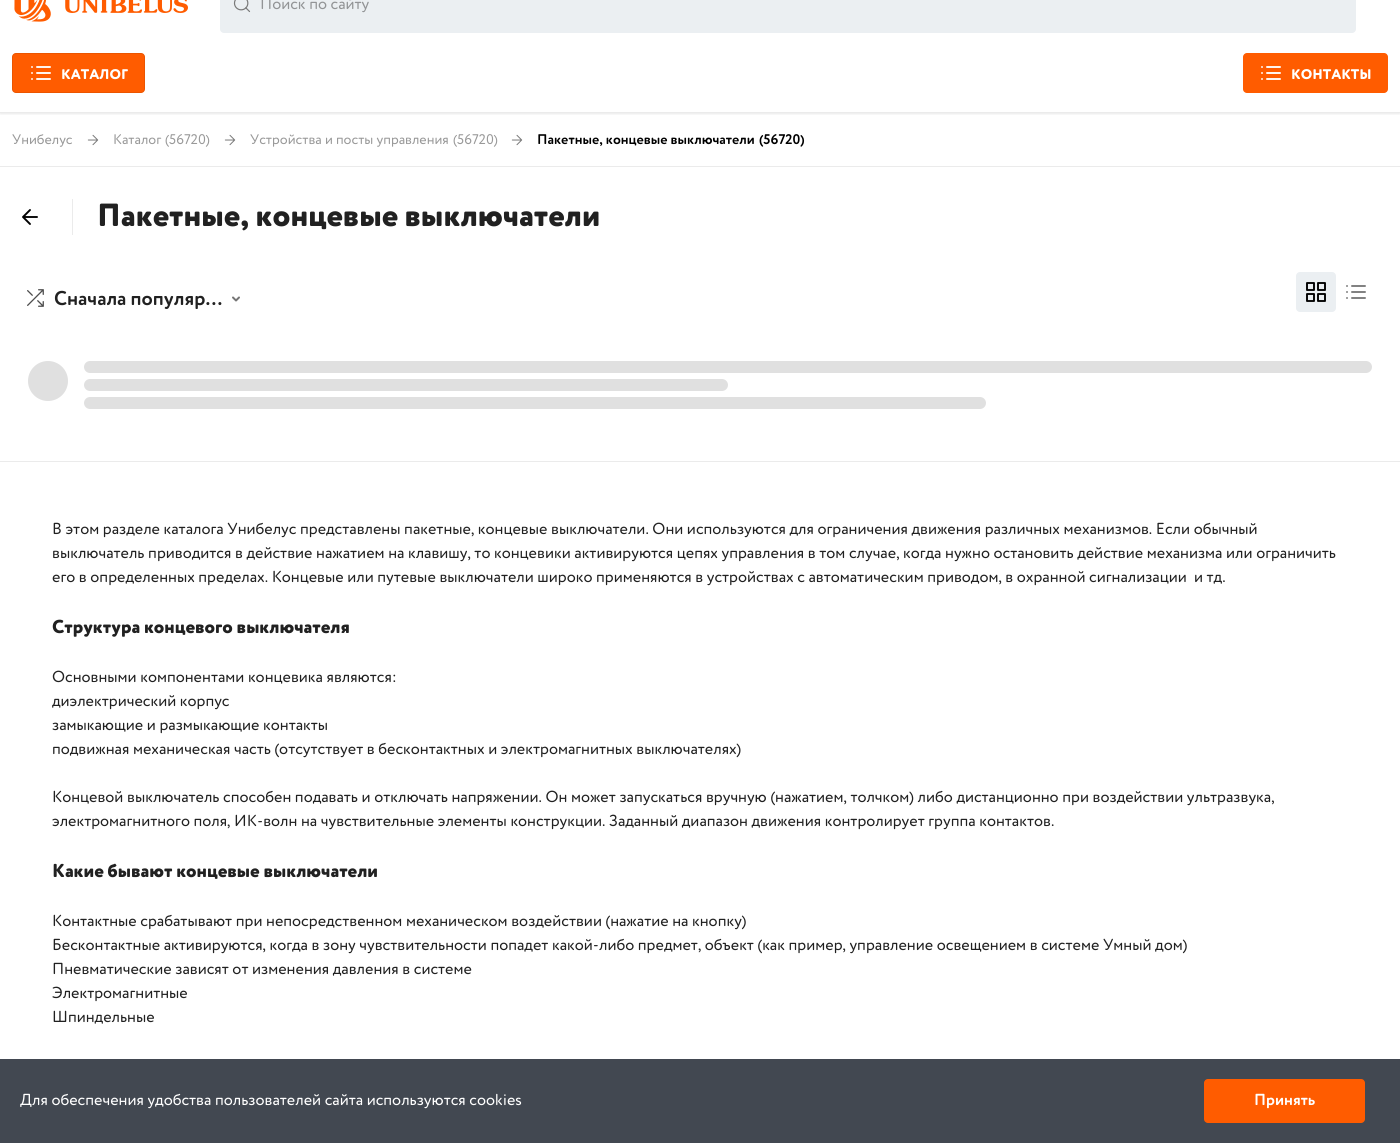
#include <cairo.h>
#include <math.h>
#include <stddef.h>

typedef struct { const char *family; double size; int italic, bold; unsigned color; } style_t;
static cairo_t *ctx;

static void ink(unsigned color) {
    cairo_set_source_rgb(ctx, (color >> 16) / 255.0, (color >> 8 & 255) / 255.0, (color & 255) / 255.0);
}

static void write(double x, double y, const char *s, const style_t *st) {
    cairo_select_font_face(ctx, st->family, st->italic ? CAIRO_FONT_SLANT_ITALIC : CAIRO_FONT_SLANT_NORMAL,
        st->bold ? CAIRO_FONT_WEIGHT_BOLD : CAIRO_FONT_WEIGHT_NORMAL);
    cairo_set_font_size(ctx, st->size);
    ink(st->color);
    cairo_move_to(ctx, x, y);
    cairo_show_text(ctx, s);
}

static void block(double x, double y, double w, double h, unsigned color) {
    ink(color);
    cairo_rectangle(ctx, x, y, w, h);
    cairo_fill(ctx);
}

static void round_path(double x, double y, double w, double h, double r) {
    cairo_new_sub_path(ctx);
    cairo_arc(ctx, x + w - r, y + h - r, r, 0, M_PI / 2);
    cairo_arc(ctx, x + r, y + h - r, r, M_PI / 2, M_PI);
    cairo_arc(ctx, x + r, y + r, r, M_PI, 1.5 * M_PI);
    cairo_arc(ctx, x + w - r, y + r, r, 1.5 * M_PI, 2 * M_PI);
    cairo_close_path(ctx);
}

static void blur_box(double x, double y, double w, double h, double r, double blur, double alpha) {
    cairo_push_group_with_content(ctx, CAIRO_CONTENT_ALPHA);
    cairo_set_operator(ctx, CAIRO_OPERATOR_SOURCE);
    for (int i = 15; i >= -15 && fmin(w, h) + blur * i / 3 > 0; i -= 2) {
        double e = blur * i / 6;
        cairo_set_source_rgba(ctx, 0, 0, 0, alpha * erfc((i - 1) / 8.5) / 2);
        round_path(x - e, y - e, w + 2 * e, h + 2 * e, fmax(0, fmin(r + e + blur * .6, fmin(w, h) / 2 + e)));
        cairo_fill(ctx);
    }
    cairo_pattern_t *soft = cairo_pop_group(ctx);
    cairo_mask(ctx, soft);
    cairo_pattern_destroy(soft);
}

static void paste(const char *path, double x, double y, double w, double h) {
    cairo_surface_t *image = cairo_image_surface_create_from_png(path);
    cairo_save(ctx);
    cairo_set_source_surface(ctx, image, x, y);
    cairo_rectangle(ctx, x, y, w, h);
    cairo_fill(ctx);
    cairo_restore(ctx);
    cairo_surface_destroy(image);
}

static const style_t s1 = {"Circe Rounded", 16, 0, 0, 0x929496};
static const style_t s2 = {"Circe Rounded ExtraBold", 14, 0, 0, 0xffffff};
static const style_t s3 = {"Circe Rounded", 14, 0, 0, 0x999999};
static const style_t s4 = {"Circe Rounded", 14, 0, 1, 0x000000};
static const style_t s5 = {"Circe Rounded ExtraBold", 32, 0, 0, 0x212121};
static const style_t s6 = {"Circe Rounded", 20, 0, 1, 0x212121};
static const style_t s7 = {"Circe Rounded", 16, 0, 0, 0x212121};
static const style_t s8 = {"Circe Rounded ExtraBold", 18.75, 0, 0, 0x212121};
static const style_t s9 = {"Circe Rounded", 16, 0, 0, 0xffffff};
static const style_t s10 = {"Circe Rounded", 16, 0, 1, 0xffffff};

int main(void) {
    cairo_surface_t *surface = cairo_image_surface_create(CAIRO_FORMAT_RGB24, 1400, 1143);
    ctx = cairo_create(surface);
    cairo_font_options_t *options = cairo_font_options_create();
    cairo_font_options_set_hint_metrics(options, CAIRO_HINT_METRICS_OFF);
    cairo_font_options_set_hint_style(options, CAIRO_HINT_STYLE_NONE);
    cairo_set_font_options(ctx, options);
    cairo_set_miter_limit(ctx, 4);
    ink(0xffffff);
    cairo_paint(ctx);
    cairo_save(ctx);
    cairo_rectangle(ctx, 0, 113, 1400, 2);
    cairo_clip(ctx);
    ink(0x000000);
    blur_box(0, -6, 1400, 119, 0, 2, 0.14);
    cairo_restore(ctx);
    block(0, 112, 1400, 1, 0xebebeb);
    paste("pic1.png", 14, 0, 37, 22);
    paste("pic2.png", 65, 0, 123, 13);
    ink(0xebeff2);
    round_path(220, -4, 1136, 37, 4);
    cairo_fill(ctx);
    paste("pic3.png", 233, 0, 18, 13);
    write(260, 9, "Поиск по сайту", &s1);
    ink(0xff5c00);
    round_path(12, 53, 133, 40, 4);
    cairo_fill(ctx);
    round_path(12.5, 53.5, 132, 39, 3.5);
    cairo_set_source_rgba(ctx, 0, 0, 0, 0.08);
    cairo_set_line_width(ctx, 1);
    cairo_stroke(ctx);
    paste("pic4.png", 31, 66, 20, 14);
    write(61, 79, "КАТАЛОГ", &s2);
    ink(0xff5c00);
    round_path(1243, 53, 145, 40, 4);
    cairo_fill(ctx);
    paste("pic4.png", 1261, 66, 20, 14);
    write(1291, 79, "КОНТАКТЫ", &s2);
    block(0, 166, 1400, 1, 0xebebeb);
    write(12, 144, "Унибелус", &s3);
    paste("pic5.png", 87, 134, 12, 12);
    write(113, 144, "Каталог", &s3);
    write(165, 144, "(56720)", &s3);
    paste("pic5.png", 224, 134, 12, 12);
    write(250, 144, "Устройства и посты управления", &s3);
    write(453, 144, "(56720)", &s3);
    paste("pic5.png", 511, 134, 12, 12);
    write(537, 144, "Пакетные, концевые выключатели", &s4);
    write(759, 144, "(56720)", &s4);
    cairo_new_path(ctx);
    cairo_move_to(ctx, 37, 217);
    cairo_line_to(ctx, 23, 217);
    cairo_move_to(ctx, 30, 224);
    cairo_line_to(ctx, 23, 217);
    cairo_line_to(ctx, 30, 210);
    cairo_set_line_width(ctx, 1.9);
    cairo_set_line_cap(ctx, CAIRO_LINE_CAP_ROUND);
    cairo_set_line_join(ctx, CAIRO_LINE_JOIN_ROUND);
    cairo_stroke(ctx);
    block(72, 199, 1, 36, 0xebebeb);
    write(97, 226, "Пакетные, концевые выключатели", &s5);
    paste("pic6.png", 27, 289, 17, 18);
    write(54, 305, "Сначала популяр…", &s6);
    paste("pic7.png", 232, 296, 8, 6);
    ink(0xebeff2);
    round_path(1296, 272, 40, 40, 4);
    cairo_fill(ctx);
    paste("pic8.png", 1306, 282, 20, 20);
    paste("pic9.png", 1346, 285, 20, 14);
    ink(0xe0e0e0);
    cairo_arc(ctx, 48, 381, 20, 0, 2 * M_PI);
    cairo_fill(ctx);
    round_path(84, 361, 1288, 12, 6);
    cairo_fill(ctx);
    round_path(84, 379, 644, 12, 6);
    cairo_fill(ctx);
    round_path(84, 397, 902, 12, 6);
    cairo_fill(ctx);
    block(0, 461, 1400, 1, 0xebebeb);
    write(52, 534, "В этом разделе каталога Унибелус представлены пакетные, концевые выключатели. Они используются для ограничения движения различных механизмов. Если обычный", &s7);
    write(52, 558, "выключатель приводится в действие нажатием на клавишу, то концевики активируются цепях управления в том случае, когда нужно остановить действие механизма или ограничить", &s7);
    write(52, 582, "его в определенных пределах. Концевые или путевые выключатели широко применяются в устройствах с автоматическим приводом, в охранной сигнализации  и тд.", &s7);
    write(52, 633, "Структура концевого выключателя", &s8);
    write(52, 682, "Основными компонентами концевика являются:", &s7);
    write(52, 706, "диэлектрический корпус", &s7);
    write(52, 730, "замыкающие и размыкающие контакты", &s7);
    write(52, 754, "подвижная механическая часть (отсутствует в бесконтактных и электромагнитных выключателях)", &s7);
    write(52, 802, "Концевой выключатель способен подавать и отключать напряжении. Он может запускаться вручную (нажатием, толчком) либо дистанционно при воздействии ультразвука,", &s7);
    write(52, 826, "электромагнитного поля, ИК-волн на чувствительные элементы конструкции. Заданный диапазон движения контролирует группа контактов.", &s7);
    write(52, 877, "Какие бывают концевые выключатели", &s8);
    write(52, 926, "Контактные срабатывают при непосредственном механическом воздействии (нажатие на кнопку)", &s7);
    write(52, 950, "Бесконтактные активируются, когда в зону чувствительности попадет какой-либо предмет, объект (как пример, управление освещением в системе Умный дом)", &s7);
    write(52, 974, "Пневматические зависят от изменения давления в системе", &s7);
    write(52, 998, "Электромагнитные", &s7);
    write(52, 1022, "Шпиндельные", &s7);
    block(0, 1059, 1400, 84, 0x424851);
    write(20, 1105, "Для обеспечения удобства пользователей сайта используются cookies", &s9);
    ink(0xff5c00);
    round_path(1204, 1079, 161, 44, 4);
    cairo_fill(ctx);
    write(1254, 1105, "Принять", &s10);
    cairo_surface_write_to_png(surface, "screenshot.png");
    cairo_font_options_destroy(options);
    cairo_destroy(ctx);
    cairo_surface_destroy(surface);
    return 0;
}
